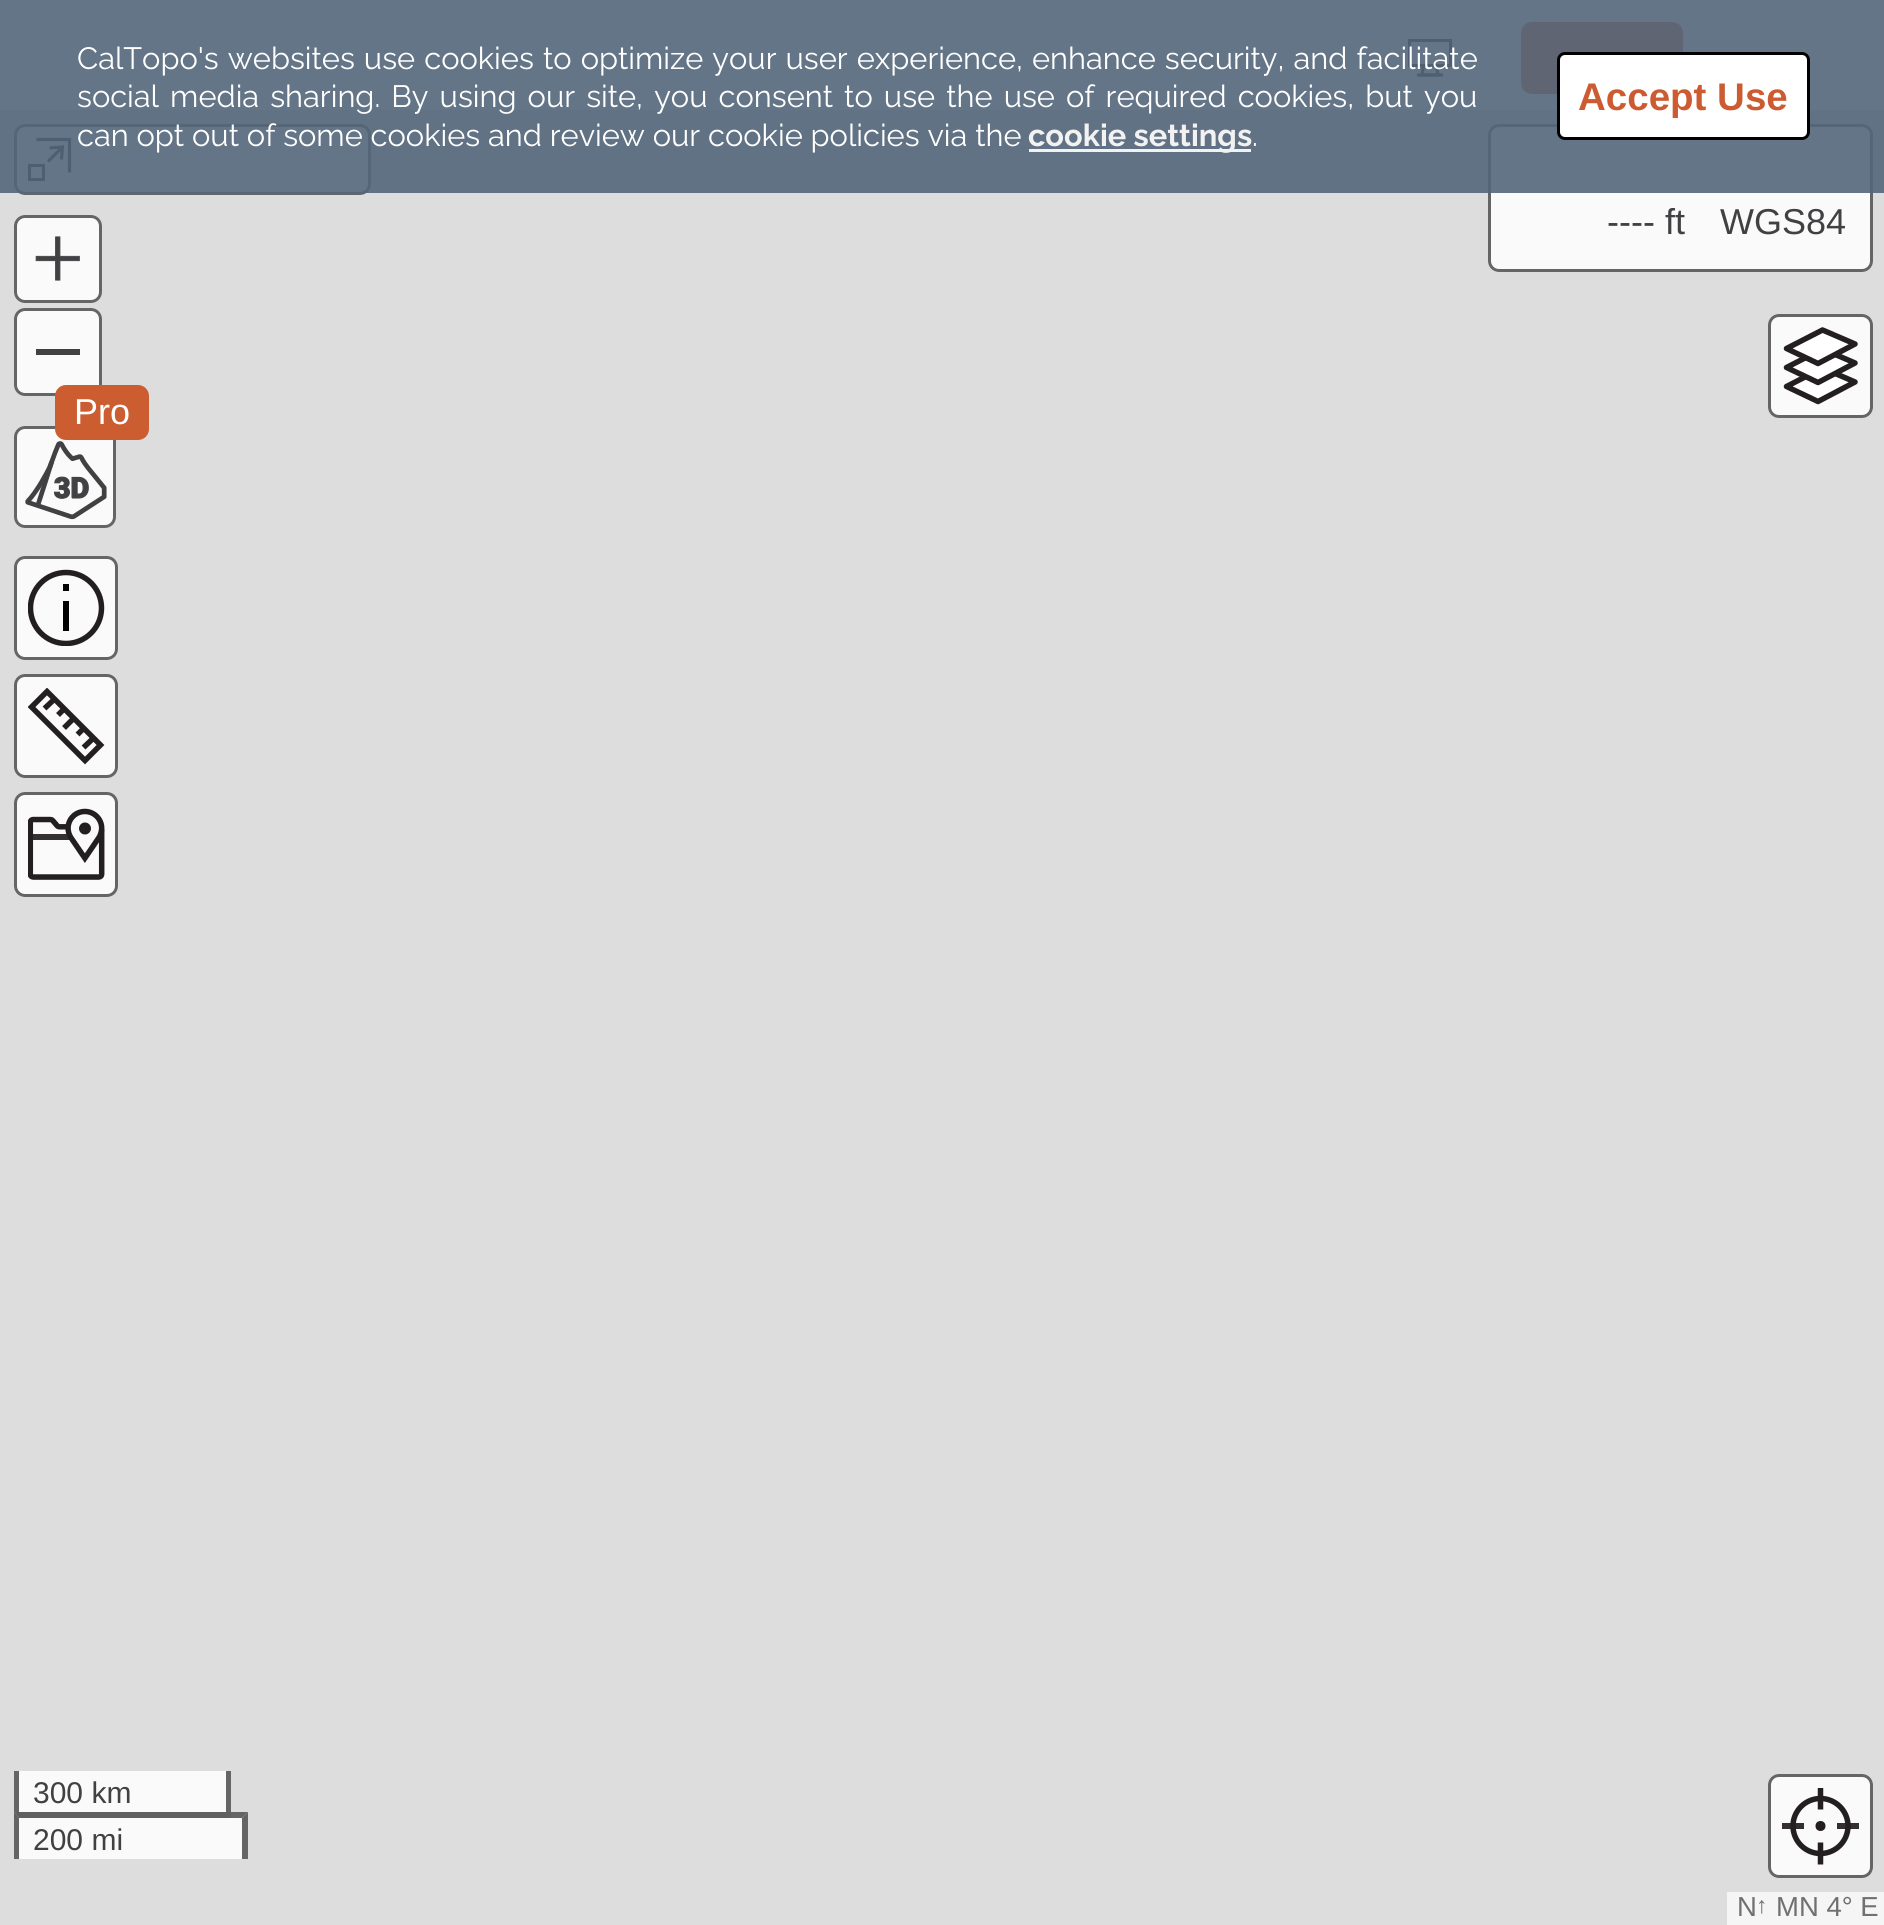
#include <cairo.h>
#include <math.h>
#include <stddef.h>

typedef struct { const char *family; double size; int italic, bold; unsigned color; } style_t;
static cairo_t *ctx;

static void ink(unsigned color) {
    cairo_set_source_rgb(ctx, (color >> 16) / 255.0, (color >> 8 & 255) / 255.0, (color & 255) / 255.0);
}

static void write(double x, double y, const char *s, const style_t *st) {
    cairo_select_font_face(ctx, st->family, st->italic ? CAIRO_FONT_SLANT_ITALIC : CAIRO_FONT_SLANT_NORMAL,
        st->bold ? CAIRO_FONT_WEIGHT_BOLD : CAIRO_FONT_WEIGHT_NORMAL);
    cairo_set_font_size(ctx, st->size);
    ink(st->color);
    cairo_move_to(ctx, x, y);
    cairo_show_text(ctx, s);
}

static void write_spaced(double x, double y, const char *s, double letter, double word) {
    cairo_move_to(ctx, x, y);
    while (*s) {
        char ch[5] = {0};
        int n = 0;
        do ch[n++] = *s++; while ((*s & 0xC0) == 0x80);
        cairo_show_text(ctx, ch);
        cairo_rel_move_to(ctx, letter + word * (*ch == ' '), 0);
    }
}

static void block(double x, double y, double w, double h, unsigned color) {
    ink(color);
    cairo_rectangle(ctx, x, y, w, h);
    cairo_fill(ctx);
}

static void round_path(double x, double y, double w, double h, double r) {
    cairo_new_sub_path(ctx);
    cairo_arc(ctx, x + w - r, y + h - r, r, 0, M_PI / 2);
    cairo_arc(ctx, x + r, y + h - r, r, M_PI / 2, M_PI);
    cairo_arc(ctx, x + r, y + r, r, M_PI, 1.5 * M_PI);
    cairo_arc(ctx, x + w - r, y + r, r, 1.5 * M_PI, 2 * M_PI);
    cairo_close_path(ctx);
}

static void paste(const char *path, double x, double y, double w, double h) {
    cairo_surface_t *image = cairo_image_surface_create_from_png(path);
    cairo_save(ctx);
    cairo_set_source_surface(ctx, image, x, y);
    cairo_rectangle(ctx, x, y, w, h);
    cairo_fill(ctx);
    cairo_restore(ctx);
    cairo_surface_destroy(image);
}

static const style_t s1 = {"Raleway", 30.8, 0, 0, 0xffffff};
static const style_t s2 = {"Raleway", 30.8, 0, 1, 0xf2f2f2};
static const style_t s3 = {"Liberation Sans", 38.5, 0, 1, 0xcc5b32};
static const style_t s4 = {"Liberation Sans", 36, 0, 0, 0x414042};
static const style_t s5 = {"Liberation Sans", 36, 0, 0, 0xffffff};
static const style_t s6 = {"Liberation Sans", 30, 0, 0, 0x414042};
static const style_t s7 = {"Liberation Sans", 27.5, 0, 0, 0x706f71};
static const style_t s8 = {"Liberation Sans", 23, 0, 0, 0x706f71};

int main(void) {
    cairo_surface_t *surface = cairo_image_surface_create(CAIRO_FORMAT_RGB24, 1884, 1925);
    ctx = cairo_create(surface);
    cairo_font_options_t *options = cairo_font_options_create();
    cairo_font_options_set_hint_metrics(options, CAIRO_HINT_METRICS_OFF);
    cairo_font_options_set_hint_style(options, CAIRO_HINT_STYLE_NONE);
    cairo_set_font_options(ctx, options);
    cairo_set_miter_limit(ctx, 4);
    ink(0xffffff);
    cairo_paint(ctx);
    cairo_new_path(ctx);
    cairo_move_to(ctx, 1436.5, 66.5);
    cairo_line_to(ctx, 1438, 75);
    cairo_line_to(ctx, 1422, 75);
    cairo_line_to(ctx, 1423.5, 66);
    ink(0x231f20);
    cairo_set_line_width(ctx, 3.1);
    cairo_set_line_join(ctx, CAIRO_LINE_JOIN_ROUND);
    cairo_stroke(ctx);
    cairo_rectangle(ctx, 1409.5, 40.5, 41, 25);
    cairo_set_line_width(ctx, 3);
    cairo_set_line_join(ctx, CAIRO_LINE_JOIN_MITER);
    cairo_stroke(ctx);
    cairo_new_path(ctx);
    cairo_move_to(ctx, 1417, 75);
    cairo_line_to(ctx, 1443, 75);
    cairo_set_line_width(ctx, 3.1);
    cairo_set_line_join(ctx, CAIRO_LINE_JOIN_ROUND);
    cairo_stroke(ctx);
    ink(0xcc5e31);
    round_path(1522.5, 23.5, 159, 69, 9.5);
    cairo_fill_preserve(ctx);
    cairo_set_line_width(ctx, 3);
    cairo_set_line_join(ctx, CAIRO_LINE_JOIN_MITER);
    cairo_stroke(ctx);
    block(0, 110, 1884, 1815, 0xdddddd);
    ink(0xfafafa);
    round_path(1488, 124, 385, 148, 11);
    cairo_fill(ctx);
    round_path(1489.5, 125.5, 382, 145, 9.5);
    cairo_set_source_rgba(ctx, 0.2, 0.2, 0.2, 0.75);
    cairo_stroke(ctx);
    ink(0xfafafa);
    round_path(14, 124, 357, 71, 11);
    cairo_fill(ctx);
    round_path(15.5, 125.5, 354, 68, 9.5);
    cairo_set_source_rgba(ctx, 0.2, 0.2, 0.2, 0.75);
    cairo_stroke(ctx);
    cairo_new_path(ctx);
    cairo_move_to(ctx, 36.5, 139.5);
    cairo_line_to(ctx, 69.5, 139.5);
    cairo_line_to(ctx, 69.5, 172.5);
    ink(0x231f20);
    cairo_set_line_width(ctx, 3.1);
    cairo_stroke(ctx);
    cairo_rectangle(ctx, 29.5, 165.5, 14, 14);
    cairo_set_line_width(ctx, 3);
    cairo_stroke(ctx);
    cairo_new_path(ctx);
    cairo_move_to(ctx, 62, 147.5);
    cairo_line_to(ctx, 48, 161.5);
    cairo_move_to(ctx, 49.5, 148);
    cairo_line_to(ctx, 62.5, 147);
    cairo_line_to(ctx, 61.5, 159.5);
    cairo_set_line_width(ctx, 3.1);
    cairo_stroke(ctx);
    cairo_set_source_rgba(ctx, 0.329, 0.4, 0.478, 0.9);
    cairo_rectangle(ctx, 0, 0, 1884, 193);
    cairo_fill(ctx);
    cairo_select_font_face(ctx, "Raleway", CAIRO_FONT_SLANT_NORMAL, CAIRO_FONT_WEIGHT_NORMAL);
    cairo_set_font_size(ctx, 30.8);
    ink(0xffffff);
    write_spaced(77, 69, "CalTopo's websites use cookies to optimize your user experience, enhance security, and facilitate", 0, 1.25);
    write_spaced(77, 107, "social media sharing. By using our site, you consent to use the use of required cookies, but you", 0, 3.25);
    write(77, 146, "can opt out of some cookies and review our cookie policies via the", &s1);
    block(1029, 149, 222, 3, 0xf2f2f2);
    write(1028, 146, "cookie settings", &s2);
    write(1252, 146, ".", &s1);
    round_path(1558.5, 53.5, 250, 85, 6.5);
    cairo_fill_preserve(ctx);
    ink(0x000000);
    cairo_set_line_width(ctx, 3);
    cairo_stroke(ctx);
    write(1578, 110, "Accept Use", &s3);
    write(1607, 234, "---- ft", &s4);
    write(1720, 234, "WGS84", &s4);
    ink(0xfafafa);
    round_path(1768, 314, 105, 104, 11);
    cairo_fill(ctx);
    round_path(1769.5, 315.5, 102, 101, 9.5);
    cairo_set_source_rgba(ctx, 0.2, 0.2, 0.2, 0.75);
    cairo_stroke(ctx);
    ink(0xffffff);
    cairo_new_path(ctx);
    cairo_move_to(ctx, 1823, 368);
    cairo_line_to(ctx, 1786, 387);
    cairo_line_to(ctx, 1818, 402);
    cairo_line_to(ctx, 1855, 382);
    cairo_close_path(ctx);
    cairo_fill(ctx);
    cairo_new_path(ctx);
    cairo_move_to(ctx, 1822.5, 368);
    cairo_line_to(ctx, 1786.5, 386.5);
    cairo_line_to(ctx, 1818, 401.5);
    cairo_line_to(ctx, 1855, 382);
    cairo_close_path(ctx);
    ink(0x231f20);
    cairo_set_line_width(ctx, 5.5);
    cairo_set_line_join(ctx, CAIRO_LINE_JOIN_ROUND);
    cairo_stroke(ctx);
    ink(0xffffff);
    cairo_new_path(ctx);
    cairo_move_to(ctx, 1823, 349);
    cairo_line_to(ctx, 1786, 368);
    cairo_line_to(ctx, 1818, 382);
    cairo_line_to(ctx, 1855, 363);
    cairo_close_path(ctx);
    cairo_fill(ctx);
    cairo_new_path(ctx);
    cairo_move_to(ctx, 1822.5, 349);
    cairo_line_to(ctx, 1786.5, 367.5);
    cairo_line_to(ctx, 1818, 382.5);
    cairo_line_to(ctx, 1855, 363);
    cairo_close_path(ctx);
    ink(0x231f20);
    cairo_stroke(ctx);
    ink(0xffffff);
    cairo_new_path(ctx);
    cairo_move_to(ctx, 1823, 330);
    cairo_line_to(ctx, 1786, 349);
    cairo_line_to(ctx, 1818, 363);
    cairo_line_to(ctx, 1855, 344);
    cairo_close_path(ctx);
    cairo_fill(ctx);
    cairo_new_path(ctx);
    cairo_move_to(ctx, 1822.5, 330);
    cairo_line_to(ctx, 1786.5, 348.5);
    cairo_line_to(ctx, 1818, 363.5);
    cairo_line_to(ctx, 1855, 344);
    cairo_close_path(ctx);
    ink(0x231f20);
    cairo_stroke(ctx);
    ink(0xfafafa);
    round_path(14, 215, 88, 88, 11);
    cairo_fill(ctx);
    round_path(15.5, 216.5, 85, 85, 9.5);
    cairo_set_source_rgba(ctx, 0.2, 0.2, 0.2, 0.75);
    cairo_set_line_width(ctx, 3);
    cairo_set_line_join(ctx, CAIRO_LINE_JOIN_MITER);
    cairo_stroke(ctx);
    paste("pic1.png", 35, 236, 45, 45);
    ink(0xfafafa);
    round_path(14, 308, 88, 88, 11);
    cairo_fill(ctx);
    round_path(15.5, 309.5, 85, 85, 9.5);
    cairo_set_source_rgba(ctx, 0.2, 0.2, 0.2, 0.75);
    cairo_stroke(ctx);
    block(36, 349, 44, 6, 0x414042);
    ink(0xfafafa);
    round_path(14, 426, 102, 102, 11);
    cairo_fill(ctx);
    round_path(15.5, 427.5, 99, 99, 9.5);
    cairo_set_source_rgba(ctx, 0.2, 0.2, 0.2, 0.75);
    cairo_stroke(ctx);
    ink(0xcc5d31);
    round_path(56.5, 386.5, 91, 52, 9.5);
    cairo_fill_preserve(ctx);
    cairo_stroke(ctx);
    write(74, 424, "Pro", &s5);
    paste("pic2.png", 25, 441, 82, 79);
    ink(0xfafafa);
    round_path(14, 556, 104, 104, 11);
    cairo_fill(ctx);
    round_path(15.5, 557.5, 101, 101, 9.5);
    cairo_set_source_rgba(ctx, 0.2, 0.2, 0.2, 0.75);
    cairo_stroke(ctx);
    cairo_save(ctx);
    cairo_rectangle(ctx, 28, 569, 77, 77);
    cairo_clip(ctx);
    cairo_arc(ctx, 66, 608, 35.5, 0, 2 * M_PI);
    ink(0x231f20);
    cairo_set_line_width(ctx, 5.5);
    cairo_stroke(ctx);
    cairo_restore(ctx);
    ink(0x010101);
    cairo_new_path(ctx);
    cairo_move_to(ctx, 63, 584);
    cairo_line_to(ctx, 69, 584);
    cairo_line_to(ctx, 69, 591);
    cairo_line_to(ctx, 63, 591);
    cairo_close_path(ctx);
    cairo_move_to(ctx, 63, 601);
    cairo_line_to(ctx, 69, 601);
    cairo_line_to(ctx, 69, 631);
    cairo_line_to(ctx, 63, 631);
    cairo_close_path(ctx);
    cairo_fill(ctx);
    ink(0xfafafa);
    round_path(14, 674, 104, 104, 11);
    cairo_fill(ctx);
    round_path(15.5, 675.5, 101, 101, 9.5);
    cairo_set_source_rgba(ctx, 0.2, 0.2, 0.2, 0.75);
    cairo_stroke(ctx);
    cairo_save(ctx);
    cairo_rectangle(ctx, 28, 688, 77, 77);
    cairo_clip(ctx);
    cairo_new_path(ctx);
    cairo_move_to(ctx, 31.5, 707);
    cairo_line_to(ctx, 47, 691.5);
    cairo_line_to(ctx, 100.5, 745);
    cairo_line_to(ctx, 85, 760.5);
    cairo_close_path(ctx);
    ink(0x231f20);
    cairo_set_line_width(ctx, 5.5);
    cairo_stroke(ctx);
    cairo_restore(ctx);
    cairo_new_path(ctx);
    cairo_move_to(ctx, 44.5, 708.5);
    cairo_line_to(ctx, 53.5, 700);
    cairo_move_to(ctx, 64, 728);
    cairo_line_to(ctx, 72.5, 719.5);
    cairo_move_to(ctx, 58, 715);
    cairo_line_to(ctx, 65, 708);
    cairo_move_to(ctx, 77.5, 734.5);
    cairo_line_to(ctx, 84.5, 727.5);
    cairo_move_to(ctx, 83.5, 747.5);
    cairo_line_to(ctx, 92.5, 739);
    ink(0x231f20);
    cairo_set_line_width(ctx, 5.5);
    cairo_stroke(ctx);
    ink(0xfafafa);
    round_path(14, 792, 104, 105, 11);
    cairo_fill(ctx);
    round_path(15.5, 793.5, 101, 102, 9.5);
    cairo_set_source_rgba(ctx, 0.2, 0.2, 0.2, 0.75);
    cairo_set_line_width(ctx, 3);
    cairo_stroke(ctx);
    paste("pic3.png", 28, 808, 77, 72);
    block(14, 1771, 217, 47, 0xfafafa);
    ink(0x656565);
    cairo_new_path(ctx);
    cairo_move_to(ctx, 231, 1771);
    cairo_line_to(ctx, 231, 1818);
    cairo_line_to(ctx, 226, 1812);
    cairo_line_to(ctx, 226, 1771);
    cairo_close_path(ctx);
    cairo_fill(ctx);
    cairo_set_source_rgba(ctx, 0.2, 0.2, 0.2, 0.75);
    cairo_new_path(ctx);
    cairo_move_to(ctx, 231, 1818);
    cairo_line_to(ctx, 14, 1818);
    cairo_line_to(ctx, 19, 1812);
    cairo_line_to(ctx, 226, 1812);
    cairo_close_path(ctx);
    cairo_fill(ctx);
    cairo_new_path(ctx);
    cairo_move_to(ctx, 14, 1818);
    cairo_line_to(ctx, 14, 1771);
    cairo_line_to(ctx, 19, 1771);
    cairo_line_to(ctx, 19, 1812);
    cairo_close_path(ctx);
    cairo_fill(ctx);
    write(33, 1803, "300 km", &s6);
    cairo_set_source_rgba(ctx, 1, 1, 1, 0.85);
    cairo_rectangle(ctx, 14, 1812, 234, 47);
    cairo_fill(ctx);
    cairo_set_source_rgba(ctx, 0.2, 0.2, 0.2, 0.75);
    cairo_new_path(ctx);
    cairo_move_to(ctx, 14, 1812);
    cairo_line_to(ctx, 248, 1812);
    cairo_line_to(ctx, 242, 1818);
    cairo_line_to(ctx, 19, 1818);
    cairo_close_path(ctx);
    cairo_fill(ctx);
    cairo_new_path(ctx);
    cairo_move_to(ctx, 248, 1812);
    cairo_line_to(ctx, 248, 1859);
    cairo_line_to(ctx, 242, 1859);
    cairo_line_to(ctx, 242, 1818);
    cairo_close_path(ctx);
    cairo_fill(ctx);
    cairo_new_path(ctx);
    cairo_move_to(ctx, 14, 1859);
    cairo_line_to(ctx, 14, 1812);
    cairo_line_to(ctx, 19, 1818);
    cairo_line_to(ctx, 19, 1859);
    cairo_close_path(ctx);
    cairo_fill(ctx);
    write(33, 1850, "200 mi", &s6);
    ink(0xfafafa);
    round_path(1768, 1774, 105, 104, 11);
    cairo_fill(ctx);
    round_path(1769.5, 1775.5, 102, 101, 9.5);
    cairo_set_source_rgba(ctx, 0.2, 0.2, 0.2, 0.75);
    cairo_stroke(ctx);
    cairo_arc(ctx, 1820.5, 1826, 27.5, 0, 2 * M_PI);
    ink(0x231f20);
    cairo_set_line_width(ctx, 5.5);
    cairo_stroke(ctx);
    cairo_save(ctx);
    cairo_rectangle(ctx, 1782, 1788, 77, 77);
    cairo_clip(ctx);
    cairo_new_path(ctx);
    cairo_move_to(ctx, 1820.5, 1787.5);
    cairo_line_to(ctx, 1820.5, 1809.5);
    cairo_stroke(ctx);
    cairo_restore(ctx);
    cairo_set_source_rgba(ctx, 0.137, 0.122, 0.125, 0.92);
    cairo_rectangle(ctx, 1782, 1823, 22, 6);
    cairo_fill(ctx);
    ink(0x231f20);
    cairo_arc(ctx, 1820.5, 1826, 5, 0, 2 * M_PI);
    cairo_fill(ctx);
    cairo_set_source_rgba(ctx, 0.137, 0.122, 0.125, 0.92);
    cairo_rectangle(ctx, 1837, 1823, 22, 6);
    cairo_fill(ctx);
    cairo_new_path(ctx);
    cairo_move_to(ctx, 1820.5, 1842.5);
    cairo_line_to(ctx, 1820.5, 1864.5);
    ink(0x231f20);
    cairo_stroke(ctx);
    block(1727, 1892, 157, 33, 0xf5f5f5);
    write(1737, 1916, "N", &s7);
    write(1756, 1913, "↑", &s8);
    write(1776, 1916, "MN 4° E", &s7);
    cairo_surface_write_to_png(surface, "screenshot.png");
    cairo_font_options_destroy(options);
    cairo_destroy(ctx);
    cairo_surface_destroy(surface);
    return 0;
}
